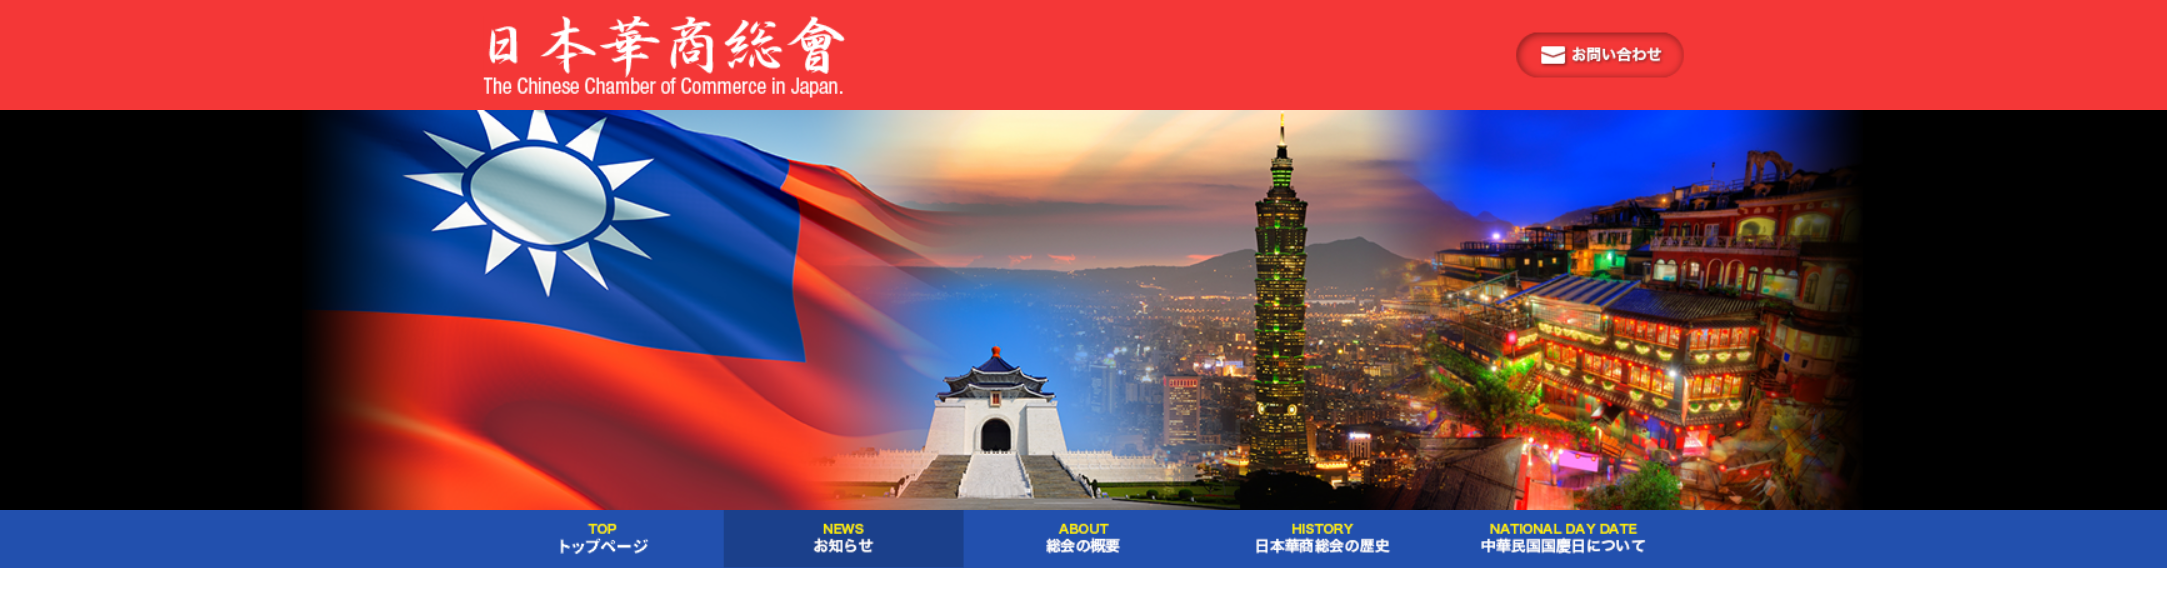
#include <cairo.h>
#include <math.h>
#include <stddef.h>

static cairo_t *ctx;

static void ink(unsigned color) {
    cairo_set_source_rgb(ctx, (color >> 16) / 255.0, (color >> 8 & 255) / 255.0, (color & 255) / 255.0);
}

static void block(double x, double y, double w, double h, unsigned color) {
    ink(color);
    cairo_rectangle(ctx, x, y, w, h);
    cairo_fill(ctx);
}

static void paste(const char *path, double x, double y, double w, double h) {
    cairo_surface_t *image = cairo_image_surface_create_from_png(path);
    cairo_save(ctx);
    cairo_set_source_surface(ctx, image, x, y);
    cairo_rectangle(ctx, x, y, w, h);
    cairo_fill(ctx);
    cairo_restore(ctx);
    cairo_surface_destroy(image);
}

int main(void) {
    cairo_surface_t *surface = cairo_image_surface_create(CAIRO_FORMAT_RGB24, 2167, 600);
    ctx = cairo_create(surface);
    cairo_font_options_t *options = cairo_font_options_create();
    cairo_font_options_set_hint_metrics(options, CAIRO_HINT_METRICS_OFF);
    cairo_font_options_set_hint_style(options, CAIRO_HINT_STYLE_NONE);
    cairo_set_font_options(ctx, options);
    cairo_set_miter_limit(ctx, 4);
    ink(0xffffff);
    cairo_paint(ctx);
    block(0, 0, 2167, 110, 0xf43737);
    paste("pic1.png", 483, 16, 363, 82);
    paste("pic2.png", 1516, 32, 168, 46);
    block(0, 110, 2167, 400, 0x000000);
    paste("pic3.png", 302, 110, 1561, 400);
    block(0, 510, 2167, 58, 0x2250ae);
    paste("pic4.png", 560, 523, 89, 32);
    paste("pic5.png", 723, 510, 241, 58);
    paste("pic6.png", 963, 510, 158, 57);
    paste("pic7.png", 1256, 523, 135, 31);
    paste("pic8.png", 1481, 523, 165, 31);
    cairo_surface_write_to_png(surface, "screenshot.png");
    cairo_font_options_destroy(options);
    cairo_destroy(ctx);
    cairo_surface_destroy(surface);
    return 0;
}
